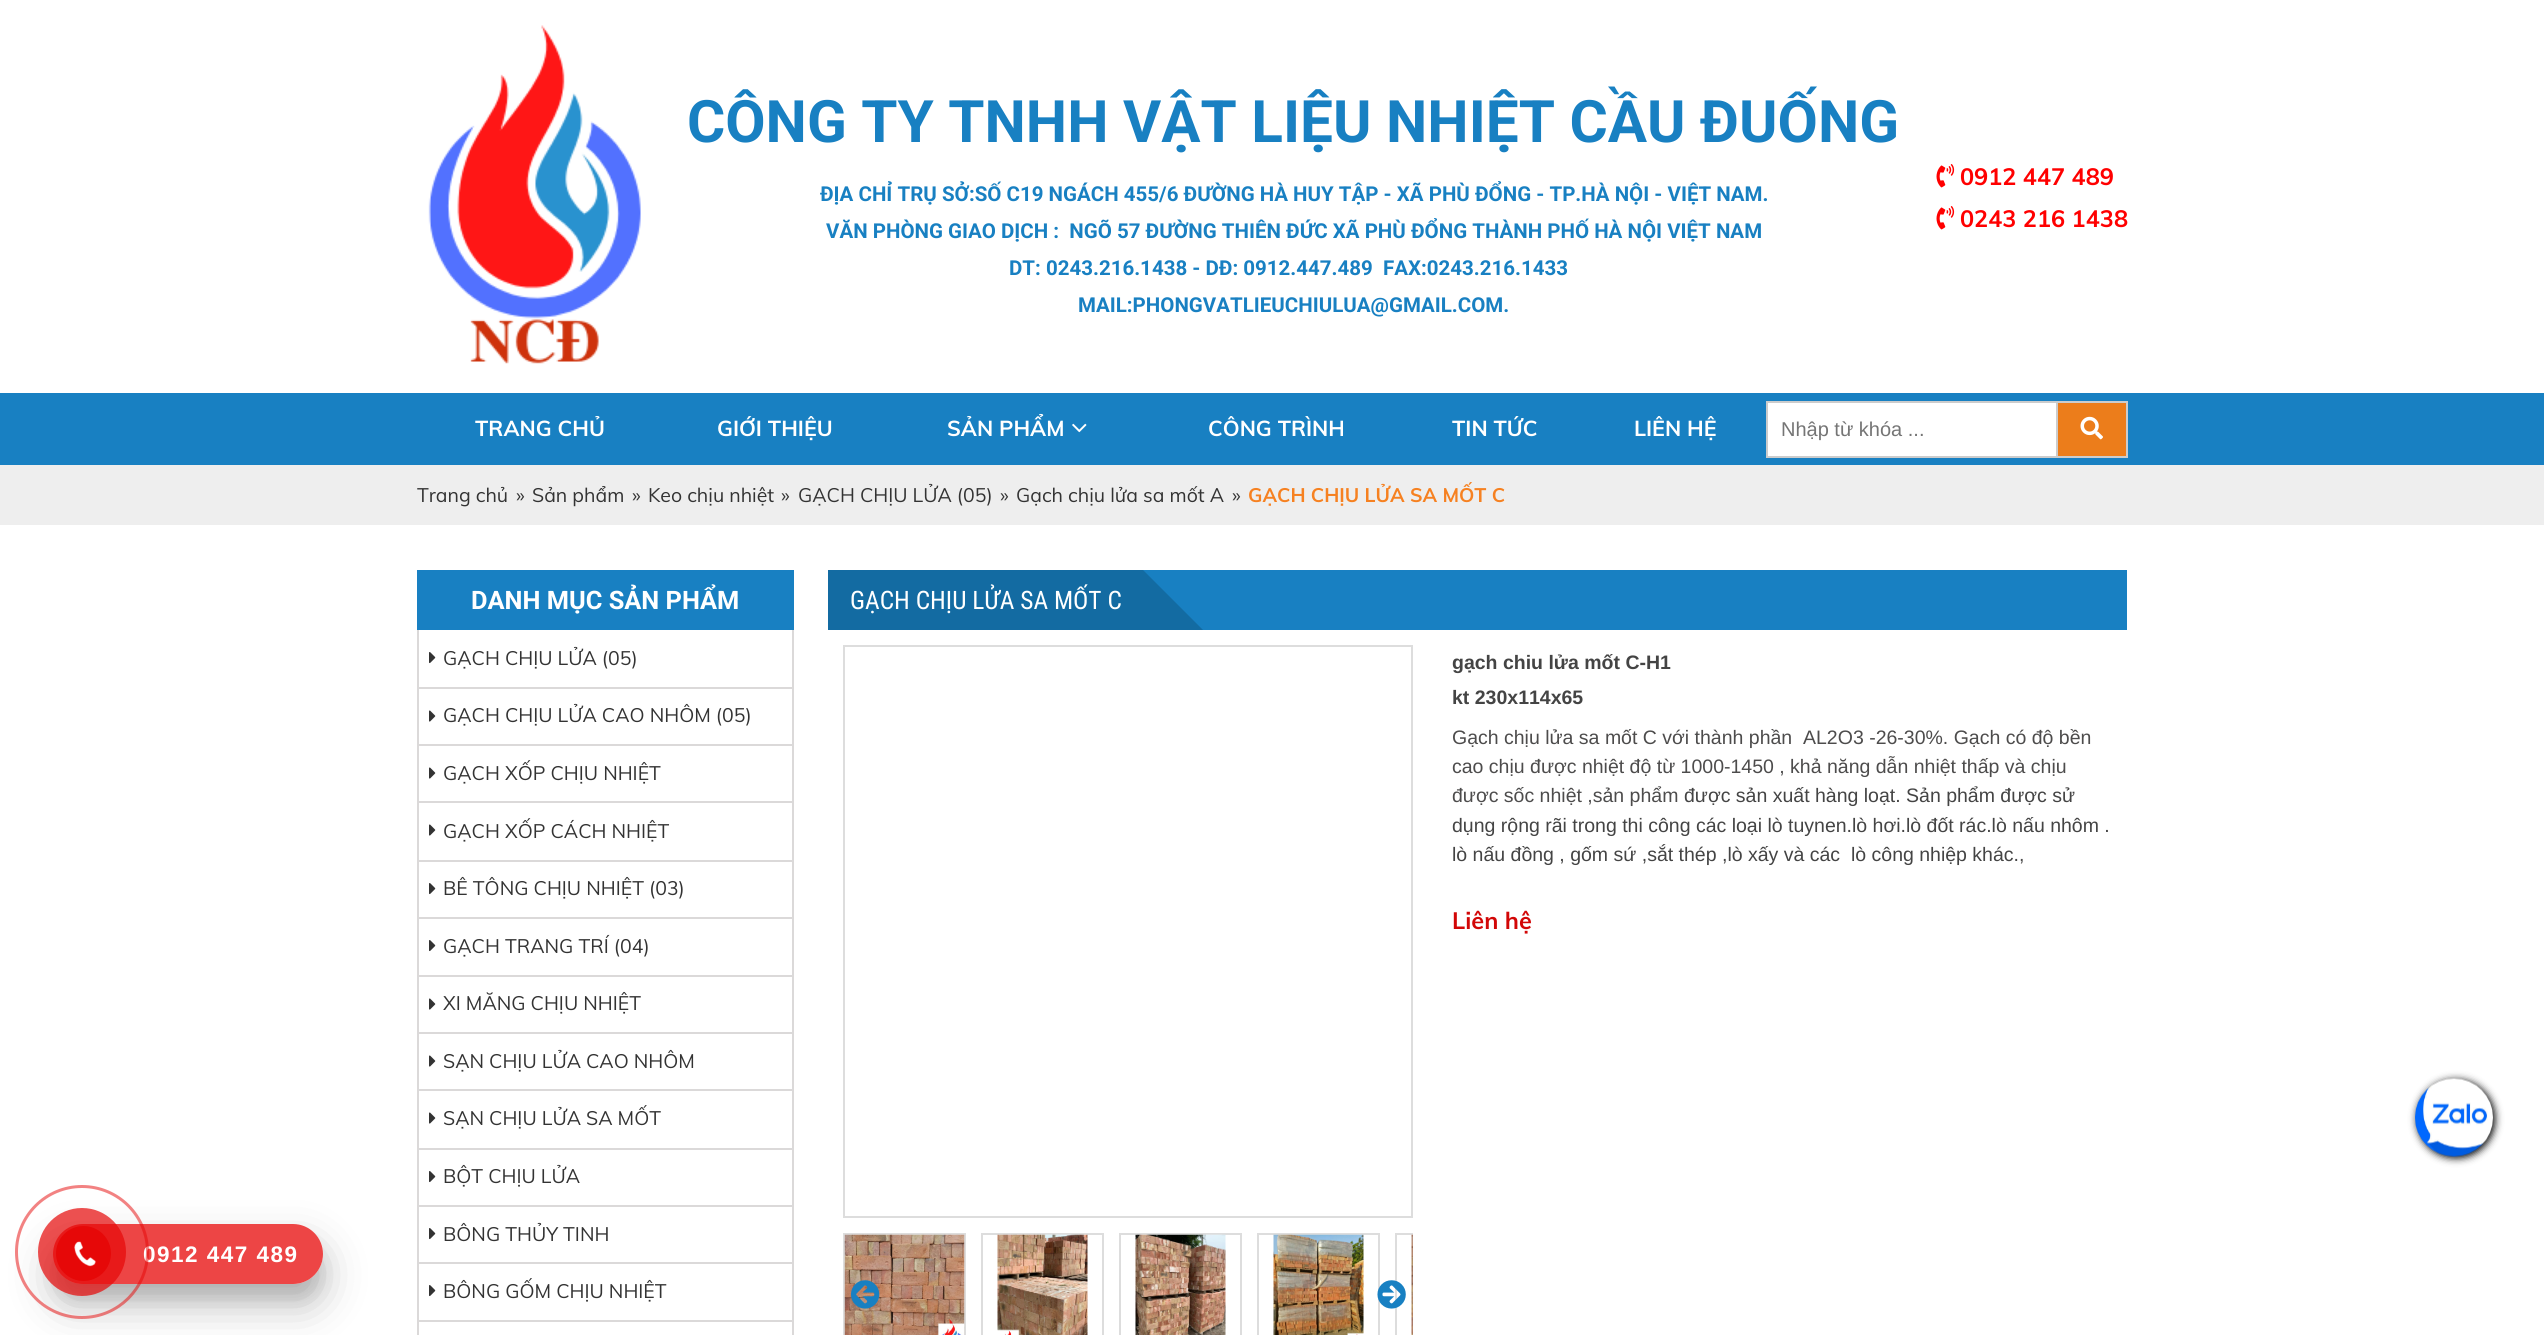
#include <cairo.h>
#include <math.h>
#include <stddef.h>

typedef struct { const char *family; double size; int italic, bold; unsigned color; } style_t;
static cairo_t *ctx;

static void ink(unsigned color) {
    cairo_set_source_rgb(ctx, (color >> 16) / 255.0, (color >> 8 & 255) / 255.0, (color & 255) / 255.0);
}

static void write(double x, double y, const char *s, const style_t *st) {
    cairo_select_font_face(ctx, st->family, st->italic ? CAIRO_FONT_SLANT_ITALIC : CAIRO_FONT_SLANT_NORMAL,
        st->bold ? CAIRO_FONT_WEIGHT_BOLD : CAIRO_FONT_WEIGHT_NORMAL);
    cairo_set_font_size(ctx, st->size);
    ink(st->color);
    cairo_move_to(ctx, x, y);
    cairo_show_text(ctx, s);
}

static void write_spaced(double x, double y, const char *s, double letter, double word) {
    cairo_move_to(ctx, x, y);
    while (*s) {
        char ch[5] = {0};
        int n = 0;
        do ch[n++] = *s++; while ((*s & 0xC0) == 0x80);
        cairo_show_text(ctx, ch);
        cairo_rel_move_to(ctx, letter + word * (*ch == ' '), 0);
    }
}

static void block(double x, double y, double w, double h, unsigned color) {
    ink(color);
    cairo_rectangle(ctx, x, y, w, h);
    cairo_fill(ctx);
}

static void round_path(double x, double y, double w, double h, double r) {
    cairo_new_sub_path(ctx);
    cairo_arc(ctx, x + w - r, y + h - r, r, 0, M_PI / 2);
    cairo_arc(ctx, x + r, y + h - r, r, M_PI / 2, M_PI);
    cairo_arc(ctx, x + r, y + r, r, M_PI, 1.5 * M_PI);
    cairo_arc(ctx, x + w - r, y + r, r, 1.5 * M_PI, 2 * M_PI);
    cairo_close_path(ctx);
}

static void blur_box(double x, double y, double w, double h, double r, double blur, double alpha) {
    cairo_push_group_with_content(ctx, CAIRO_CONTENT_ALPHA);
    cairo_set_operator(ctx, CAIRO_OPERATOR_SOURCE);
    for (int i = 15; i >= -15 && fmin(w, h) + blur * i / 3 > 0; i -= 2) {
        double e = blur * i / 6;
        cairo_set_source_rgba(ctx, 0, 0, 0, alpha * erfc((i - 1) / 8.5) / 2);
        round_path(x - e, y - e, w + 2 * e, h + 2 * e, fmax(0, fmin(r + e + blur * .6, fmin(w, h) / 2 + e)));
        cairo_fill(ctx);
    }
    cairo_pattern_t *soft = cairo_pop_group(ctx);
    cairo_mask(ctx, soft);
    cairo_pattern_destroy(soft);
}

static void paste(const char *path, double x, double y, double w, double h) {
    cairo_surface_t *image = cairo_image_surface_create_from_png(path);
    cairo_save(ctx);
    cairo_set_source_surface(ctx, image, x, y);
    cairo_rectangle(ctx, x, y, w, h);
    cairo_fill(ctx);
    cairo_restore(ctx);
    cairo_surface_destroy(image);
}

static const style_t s1 = {"Roboto", 58.5, 0, 1, 0x1880c2};
static const style_t s2 = {"Roboto", 20.5, 0, 1, 0x1880c2};
static const style_t s3 = {"Muli", 23.5, 0, 1, 0xff0000};
static const style_t s4 = {"Muli", 21.5, 0, 1, 0xffffff};
static const style_t s5 = {"Liberation Sans", 20, 0, 0, 0x757575};
static const style_t s6 = {"Muli", 19.5, 0, 0, 0x333333};
static const style_t s7 = {"Muli", 19.5, 0, 1, 0xf68121};
static const style_t s8 = {"Roboto", 25.4, 0, 1, 0xffffff};
static const style_t s9 = {"Roboto Condensed", 25.4, 0, 0, 0xffffff};
static const style_t s10 = {"Liberation Sans", 19.5, 0, 1, 0x444444};
static const style_t s11 = {"Liberation Sans", 19.5, 0, 0, 0x4d4c4c};
static const style_t s12 = {"Liberation Sans", 19.5, 0, 0, 0x444444};
static const style_t s13 = {"Muli", 23.5, 0, 1, 0xd20707};

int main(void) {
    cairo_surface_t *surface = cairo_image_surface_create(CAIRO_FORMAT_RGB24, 2544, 1335);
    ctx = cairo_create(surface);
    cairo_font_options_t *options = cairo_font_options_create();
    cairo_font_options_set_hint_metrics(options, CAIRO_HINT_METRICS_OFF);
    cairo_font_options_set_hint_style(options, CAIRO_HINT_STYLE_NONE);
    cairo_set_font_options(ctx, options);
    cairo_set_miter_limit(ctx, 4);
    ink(0xffffff);
    cairo_paint(ctx);
    ink(0x000000);
    blur_box(2417, 1080, 78, 78, 39, 4, 1);
    paste("pic1.png", 2415, 1078, 78, 79);
    cairo_save(ctx);
    cairo_set_fill_rule(ctx, CAIRO_FILL_RULE_EVEN_ODD);
    cairo_new_path(ctx);
    cairo_move_to(ctx, 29, 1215);
    cairo_line_to(ctx, 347, 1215);
    cairo_line_to(ctx, 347, 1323);
    cairo_line_to(ctx, 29, 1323);
    cairo_close_path(ctx);
    cairo_move_to(ctx, 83, 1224);
    cairo_line_to(ctx, 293, 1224);
    cairo_curve_to(ctx, 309.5, 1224, 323, 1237.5, 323, 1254);
    cairo_curve_to(ctx, 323, 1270.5, 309.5, 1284, 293, 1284);
    cairo_line_to(ctx, 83, 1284);
    cairo_curve_to(ctx, 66.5, 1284, 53, 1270.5, 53, 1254);
    cairo_curve_to(ctx, 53, 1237.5, 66.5, 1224, 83, 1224);
    cairo_close_path(ctx);
    cairo_clip(ctx);
    blur_box(53, 1239, 270, 60, 30, 7.5, 0.1);
    cairo_restore(ctx);
    cairo_save(ctx);
    cairo_set_fill_rule(ctx, CAIRO_FILL_RULE_EVEN_ODD);
    cairo_new_path(ctx);
    cairo_move_to(ctx, 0, 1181);
    cairo_line_to(ctx, 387, 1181);
    cairo_line_to(ctx, 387, 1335);
    cairo_line_to(ctx, 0, 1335);
    cairo_close_path(ctx);
    cairo_move_to(ctx, 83, 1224);
    cairo_line_to(ctx, 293, 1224);
    cairo_curve_to(ctx, 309.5, 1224, 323, 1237.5, 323, 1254);
    cairo_curve_to(ctx, 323, 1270.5, 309.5, 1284, 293, 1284);
    cairo_line_to(ctx, 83, 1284);
    cairo_curve_to(ctx, 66.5, 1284, 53, 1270.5, 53, 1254);
    cairo_curve_to(ctx, 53, 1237.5, 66.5, 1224, 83, 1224);
    cairo_close_path(ctx);
    cairo_clip(ctx);
    blur_box(53, 1245, 270, 60, 30, 21, 0.25);
    cairo_restore(ctx);
    cairo_set_source_rgba(ctx, 0.902, 0.031, 0.031, 0.75);
    round_path(53, 1224, 270, 60, 30);
    cairo_fill(ctx);
    cairo_select_font_face(ctx, "Liberation Sans", CAIRO_FONT_SLANT_NORMAL, CAIRO_FONT_WEIGHT_BOLD);
    cairo_set_font_size(ctx, 22.5);
    ink(0xffffff);
    write_spaced(143, 1262, "0912 447 489", 1.5, 0);
    cairo_new_path(ctx);
    cairo_arc(ctx, 82, 1252, 65.5, 0, 2 * M_PI);
    cairo_set_source_rgba(ctx, 0.902, 0.031, 0.031, 0.5);
    cairo_set_line_width(ctx, 3);
    cairo_stroke(ctx);
    cairo_set_source_rgba(ctx, 0.902, 0.031, 0.031, 0.7);
    cairo_arc(ctx, 82, 1252, 44, 0, 2 * M_PI);
    cairo_fill(ctx);
    ink(0xe60808);
    cairo_arc(ctx, 83.5, 1253.5, 27.5, 0, 2 * M_PI);
    cairo_fill(ctx);
    paste("pic2.png", 74, 1241, 22, 26);
    paste("pic3.png", 428, 25, 213, 339);
    write(687, 142, "CÔNG TY TNHH VẬT LIỆU NHIỆT CẦU ĐUỐNG", &s1);
    write(820, 201, "ĐỊA CHỈ TRỤ SỞ:SỐ C19 NGÁCH 455/6 ĐƯỜNG HÀ HUY TẬP - XÃ PHÙ ĐỔNG - TP.HÀ NỘI - VIỆT NAM.", &s2);
    write(826, 238, "VĂN PHÒNG GIAO DỊCH :  NGÕ 57 ĐƯỜNG THIÊN ĐỨC XÃ PHÙ ĐỔNG THÀNH PHỐ HÀ NỘI VIỆT NAM", &s2);
    write(1009, 275, "DT: 0243.216.1438 - DĐ: 0912.447.489  FAX:0243.216.1433", &s2);
    write(1078, 312, "MAIL:PHONGVATLIEUCHIULUA@GMAIL.COM.", &s2);
    paste("pic4.png", 1936, 164, 19, 24);
    write(1960, 185, "0912 447 489", &s3);
    paste("pic4.png", 1936, 206, 19, 24);
    write(1960, 227, "0243 216 1438", &s3);
    block(0, 393, 2544, 72, 0x1880c2);
    write(475, 436, "TRANG CHỦ", &s4);
    write(717, 436, "GIỚI THIỆU", &s4);
    write(947, 436, "SẢN PHẨM", &s4);
    paste("pic5.png", 1072, 423, 15, 10);
    write(1208, 436, "CÔNG TRÌNH", &s4);
    write(1452, 436, "TIN TỨC", &s4);
    write(1634, 436, "LIÊN HỆ", &s4);
    cairo_rectangle(ctx, 1767, 402, 290, 55);
    cairo_fill_preserve(ctx);
    ink(0xcccccc);
    cairo_set_line_width(ctx, 2);
    cairo_stroke(ctx);
    write(1781, 436, "Nhập từ khóa ...", &s5);
    block(2058, 403, 68, 53, 0xec7d1b);
    block(2058, 401, 69, 2, 0xcccccc);
    block(2126, 401, 2, 57, 0xcccccc);
    block(2058, 456, 69, 2, 0xcccccc);
    paste("pic6.png", 2080, 416, 23, 24);
    block(0, 465, 2544, 60, 0xeeeeee);
    write(417, 502, "Trang chủ", &s6);
    write(516, 502, "»", &s6);
    write(532, 502, "Sản phẩm", &s6);
    write(632, 502, "»", &s6);
    write(648, 502, "Keo chịu nhiệt", &s6);
    write(781, 502, "»", &s6);
    write(798, 502, "GẠCH CHỊU LỬA (05)", &s6);
    write(1000, 502, "»", &s6);
    write(1016, 502, "Gạch chịu lửa sa mốt A", &s6);
    write(1232, 502, "»", &s6);
    write(1248, 502, "GẠCH CHỊU LỬA SA MỐT C", &s7);
    block(417, 570, 377, 60, 0x1880c2);
    write(471, 609, "DANH MỤC SẢN PHẨM", &s8);
    block(792, 630, 2, 705, 0xdbd9d9);
    block(417, 630, 2, 705, 0xdbd9d9);
    block(419, 687, 373, 2, 0xdbd9d9);
    paste("pic7.png", 429, 652, 7, 12);
    write(443, 665, "GẠCH CHỊU LỬA (05)", &s6);
    block(419, 744, 373, 2, 0xdbd9d9);
    paste("pic8.png", 429, 710, 7, 12);
    write(443, 722, "GẠCH CHỊU LỬA CAO NHÔM (05)", &s6);
    block(419, 801, 373, 2, 0xdbd9d9);
    paste("pic8.png", 429, 767, 7, 12);
    write(443, 780, "GẠCH XỐP CHỊU NHIỆT", &s6);
    block(419, 860, 373, 2, 0xdbd9d9);
    paste("pic8.png", 429, 824, 7, 12);
    write(443, 838, "GẠCH XỐP CÁCH NHIỆT", &s6);
    block(419, 917, 373, 2, 0xdbd9d9);
    paste("pic7.png", 429, 883, 7, 12);
    write(443, 895, "BÊ TÔNG CHỊU NHIỆT (03)", &s6);
    block(419, 975, 373, 2, 0xdbd9d9);
    paste("pic7.png", 429, 940, 7, 12);
    write(443, 953, "GẠCH TRANG TRÍ (04)", &s6);
    block(419, 1032, 373, 2, 0xdbd9d9);
    paste("pic8.png", 429, 998, 7, 12);
    write(443, 1010, "XI MĂNG CHỊU NHIỆT", &s6);
    block(419, 1089, 373, 2, 0xdbd9d9);
    paste("pic8.png", 429, 1055, 7, 12);
    write(443, 1068, "SẠN CHỊU LỬA CAO NHÔM", &s6);
    block(419, 1148, 373, 2, 0xdbd9d9);
    paste("pic8.png", 429, 1112, 7, 12);
    write(443, 1125, "SẠN CHỊU LỬA SA MỐT", &s6);
    block(419, 1205, 373, 2, 0xdbd9d9);
    paste("pic7.png", 429, 1171, 7, 12);
    write(443, 1183, "BỘT CHỊU LỬA", &s6);
    block(419, 1262, 373, 2, 0xdbd9d9);
    paste("pic7.png", 429, 1228, 7, 12);
    write(443, 1241, "BÔNG THỦY TINH", &s6);
    block(419, 1320, 373, 2, 0xdbd9d9);
    paste("pic7.png", 429, 1285, 7, 12);
    write(443, 1298, "BÔNG GỐM CHỊU NHIỆT", &s6);
    block(1143, 570, 984, 60, 0x1880c2);
    block(828, 570, 315, 60, 0x136ba2);
    write(850, 609, "GẠCH CHỊU LỬA SA MỐT C", &s9);
    cairo_save(ctx);
    cairo_rectangle(ctx, 828, 570, 1299, 60);
    cairo_clip(ctx);
    ink(0x136ba2);
    cairo_new_path(ctx);
    cairo_move_to(ctx, 1143, 645);
    cairo_line_to(ctx, 1143, 570);
    cairo_line_to(ctx, 1218, 645);
    cairo_close_path(ctx);
    cairo_fill(ctx);
    cairo_restore(ctx);
    cairo_rectangle(ctx, 844, 646, 568, 571);
    ink(0xdddddd);
    cairo_stroke(ctx);
    cairo_rectangle(ctx, 844, 1234, 121, 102);
    cairo_stroke(ctx);
    paste("pic9.png", 844, 1234, 121, 101);
    cairo_rectangle(ctx, 982, 1234, 121, 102);
    cairo_stroke(ctx);
    paste("pic10.png", 997, 1234, 91, 101);
    cairo_rectangle(ctx, 1120, 1234, 121, 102);
    cairo_stroke(ctx);
    paste("pic11.png", 1135, 1234, 91, 101);
    cairo_rectangle(ctx, 1258, 1234, 121, 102);
    cairo_stroke(ctx);
    paste("pic12.png", 1273, 1234, 91, 101);
    cairo_save(ctx);
    cairo_rectangle(ctx, 843, 1233, 570, 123);
    cairo_clip(ctx);
    cairo_rectangle(ctx, 1396, 1234, 121, 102);
    cairo_stroke(ctx);
    cairo_restore(ctx);
    paste("pic13.png", 1411, 1234, 2, 101);
    paste("pic14.png", 851, 1280, 29, 29);
    paste("pic15.png", 1377, 1280, 29, 29);
    write(1452, 669, "gạch chiu lửa mốt C-H1", &s10);
    write(1452, 704, "kt 230x114x65", &s10);
    write(1452, 744, "Gạch chịu lửa sa mốt C với thành phần  AL2O3 -26-30%. Gạch có độ bền", &s11);
    write(1452, 773, "cao chịu được nhiệt độ từ 1000-1450 , khả năng dẫn nhiệt thấp và chịu", &s11);
    write(1452, 802, "được sốc nhiệt ,sản phẩm", &s11);
    write(1684, 802, "được sản xuất hàng loạt. Sản phẩm được sử", &s12);
    write(1452, 832, "dụng rộng rãi trong thi công các loại lò tuynen.lò hơi.lò đốt rác.lò nấu nhôm .", &s12);
    write(1452, 861, "lò nấu đồng , gốm sứ ,sắt thép ,lò xấy và các  lò công nhiệp khác.", &s12);
    write(2019, 861, ",", &s11);
    write(1452, 929, "Liên hệ", &s13);
    cairo_surface_write_to_png(surface, "screenshot.png");
    cairo_font_options_destroy(options);
    cairo_destroy(ctx);
    cairo_surface_destroy(surface);
    return 0;
}
